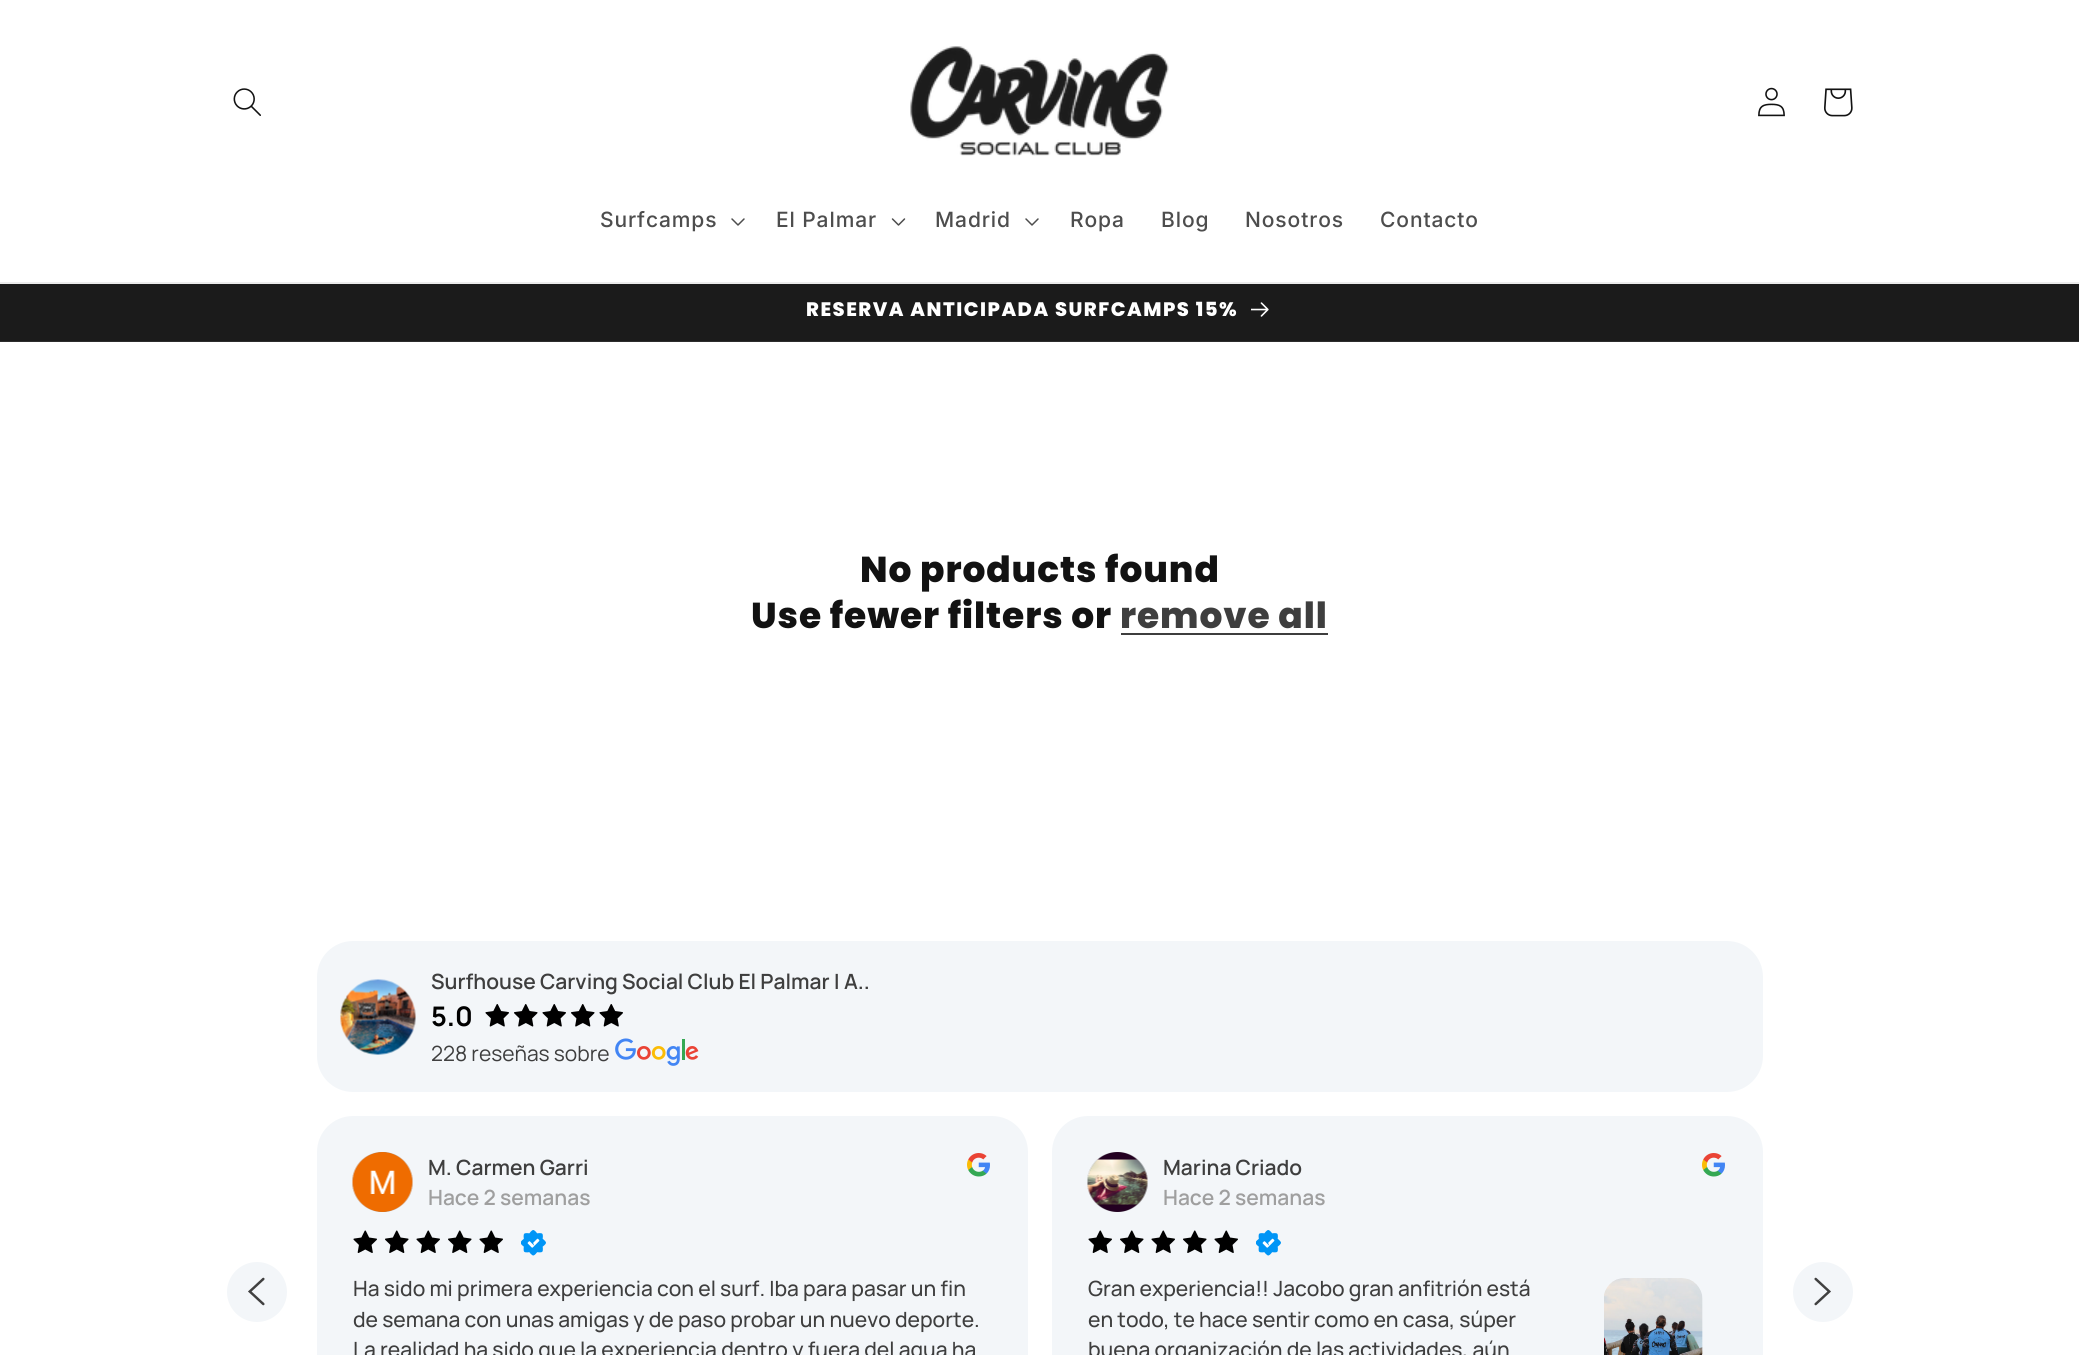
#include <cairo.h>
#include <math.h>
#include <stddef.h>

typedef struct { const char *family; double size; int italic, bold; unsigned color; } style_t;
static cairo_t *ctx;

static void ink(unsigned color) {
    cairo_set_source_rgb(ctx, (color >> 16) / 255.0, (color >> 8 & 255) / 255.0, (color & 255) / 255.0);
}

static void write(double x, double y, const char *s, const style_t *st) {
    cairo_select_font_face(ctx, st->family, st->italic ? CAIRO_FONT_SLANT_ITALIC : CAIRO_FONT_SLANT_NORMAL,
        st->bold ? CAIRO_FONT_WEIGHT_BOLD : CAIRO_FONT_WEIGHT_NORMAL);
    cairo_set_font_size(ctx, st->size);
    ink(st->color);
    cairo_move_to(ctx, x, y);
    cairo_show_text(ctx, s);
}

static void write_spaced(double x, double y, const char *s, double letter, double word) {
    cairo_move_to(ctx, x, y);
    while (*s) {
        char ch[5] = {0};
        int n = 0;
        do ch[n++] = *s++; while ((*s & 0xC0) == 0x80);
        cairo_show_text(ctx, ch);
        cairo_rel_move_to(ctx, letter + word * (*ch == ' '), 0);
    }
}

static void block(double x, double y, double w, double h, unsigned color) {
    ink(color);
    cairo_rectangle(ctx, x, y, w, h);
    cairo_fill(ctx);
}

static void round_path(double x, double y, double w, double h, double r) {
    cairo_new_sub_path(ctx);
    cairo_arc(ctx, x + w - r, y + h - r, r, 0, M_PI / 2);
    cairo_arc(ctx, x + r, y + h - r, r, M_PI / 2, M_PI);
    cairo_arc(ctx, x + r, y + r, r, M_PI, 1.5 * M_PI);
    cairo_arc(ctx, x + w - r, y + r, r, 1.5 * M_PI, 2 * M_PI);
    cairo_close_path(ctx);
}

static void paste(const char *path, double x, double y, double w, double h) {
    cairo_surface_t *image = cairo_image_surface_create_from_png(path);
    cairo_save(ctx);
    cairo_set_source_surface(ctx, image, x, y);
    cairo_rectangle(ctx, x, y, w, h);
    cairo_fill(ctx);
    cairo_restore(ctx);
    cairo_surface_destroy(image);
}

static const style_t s1 = {"Manrope SemiBold", 21, 0, 0, 0x3e3e3e};
static const style_t s2 = {"Manrope", 27, 0, 1, 0x000000};
static const style_t s3 = {"Manrope", 21, 0, 0, 0x3e3e3e};
static const style_t s4 = {"Manrope SemiBold", 21, 0, 0, 0x9f9f9f};
static const style_t s5 = {"Manrope Medium", 21, 0, 0, 0x3e3e3e};

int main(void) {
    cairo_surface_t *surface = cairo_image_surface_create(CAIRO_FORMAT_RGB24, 2079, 1355);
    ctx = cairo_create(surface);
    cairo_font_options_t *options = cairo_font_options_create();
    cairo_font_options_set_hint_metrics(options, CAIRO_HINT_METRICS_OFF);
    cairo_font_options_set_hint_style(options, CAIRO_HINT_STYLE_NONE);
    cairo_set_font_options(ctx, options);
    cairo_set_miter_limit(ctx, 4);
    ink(0xffffff);
    cairo_paint(ctx);
    block(0, 282, 2079, 2, 0xececec);
    paste("pic1.png", 233, 88, 28, 28);
    paste("pic2.png", 910, 46, 259, 110);
    paste("pic3.png", 1758, 87, 27, 30);
    paste("pic4.png", 1824, 88, 29, 29);
    cairo_select_font_face(ctx, "Inter Medium", CAIRO_FONT_SLANT_NORMAL, CAIRO_FONT_WEIGHT_NORMAL);
    cairo_set_font_size(ctx, 21);
    ink(0x4d4d4d);
    write_spaced(600, 227, "Surfcamps", 0.9, 0);
    paste("pic5.png", 731, 218, 14, 8);
    write_spaced(776, 227, "El Palmar", 0.9, 0);
    paste("pic6.png", 891, 218, 15, 8);
    write_spaced(935, 227, "Madrid", 0.9, 0);
    paste("pic5.png", 1025, 218, 14, 8);
    write_spaced(1070, 227, "Ropa", 0.9, 0);
    write_spaced(1161, 227, "Blog", 0.9, 0);
    write_spaced(1245, 227, "Nosotros", 0.9, 0);
    write_spaced(1380, 227, "Contacto", 0.9, 0);
    block(0, 284, 2079, 57, 0x1b1b1b);
    block(0, 341, 2079, 1, 0x2d2d2d);
    cairo_select_font_face(ctx, "Poppins ExtraBold", CAIRO_FONT_SLANT_NORMAL, CAIRO_FONT_WEIGHT_NORMAL);
    cairo_set_font_size(ctx, 19.5);
    ink(0xffffff);
    write_spaced(806, 316, "RESERVA ANTICIPADA SURFCAMPS 15%", 1.5, 0);
    paste("pic7.png", 1251, 302, 18, 15);
    cairo_set_font_size(ctx, 36);
    ink(0x121212);
    write_spaced(860, 582, "No products found", 0.9, 0);
    write_spaced(751, 628, "Use fewer filters or", 0.9, 0);
    ink(0x3e3e3e);
    write_spaced(1120, 628, "remove all", 0.9, 0);
    block(1121, 633, 207, 2, 0x3e3e3e);
    ink(0xf3f6f9);
    round_path(317, 941, 1446, 151, 36);
    cairo_fill(ctx);
    paste("pic8.png", 340, 979, 76, 76);
    write(431, 989, "Surfhouse Carving Social Club El Palmar | A..", &s1);
    write(431, 1026, "5.0", &s2);
    paste("pic9.png", 485, 1004, 24, 23);
    paste("pic10.png", 514, 1004, 24, 23);
    paste("pic9.png", 542, 1004, 24, 23);
    paste("pic10.png", 571, 1004, 24, 23);
    paste("pic9.png", 599, 1004, 24, 23);
    write(431, 1061, "228 reseñas sobre", &s3);
    paste("pic11.png", 615, 1038, 84, 28);
    ink(0xf3f6f9);
    cairo_arc(ctx, 257, 1292, 30, 0, 2 * M_PI);
    cairo_fill(ctx);
    paste("pic12.png", 248, 1277, 17, 29);
    round_path(317, 1116, 711, 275, 36);
    cairo_fill(ctx);
    paste("pic13.png", 352, 1152, 61, 60);
    write(428, 1175, "M. Carmen Garri", &s1);
    write(428, 1205, "Hace 2 semanas", &s4);
    paste("pic14.png", 967, 1153, 23, 24);
    paste("pic15.png", 353, 1230, 24, 23);
    paste("pic16.png", 385, 1230, 24, 23);
    paste("pic15.png", 416, 1230, 24, 23);
    paste("pic16.png", 448, 1230, 24, 23);
    paste("pic15.png", 479, 1230, 24, 23);
    paste("pic17.png", 521, 1230, 25, 26);
    write(353, 1296, "Ha sido mi primera experiencia con el surf. Iba para pasar un fin", &s5);
    write(353, 1327, "de semana con unas amigas y de paso probar un nuevo deporte.", &s5);
    write(353, 1357, "La realidad ha sido que la experiencia dentro y fuera del agua ha", &s5);
    ink(0xf3f6f9);
    round_path(1052, 1116, 711, 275, 36);
    cairo_fill(ctx);
    paste("pic18.png", 1087, 1152, 61, 60);
    write(1163, 1175, "Marina Criado", &s1);
    write(1163, 1205, "Hace 2 semanas", &s4);
    paste("pic14.png", 1702, 1153, 23, 24);
    paste("pic15.png", 1088, 1230, 24, 23);
    paste("pic16.png", 1120, 1230, 24, 23);
    paste("pic15.png", 1151, 1230, 24, 23);
    paste("pic16.png", 1183, 1230, 24, 23);
    paste("pic15.png", 1214, 1230, 24, 23);
    paste("pic17.png", 1256, 1230, 25, 26);
    write(1088, 1296, "Gran experiencia!! Jacobo gran anfitrión está", &s5);
    write(1088, 1327, "en todo, te hace sentir como en casa, súper", &s5);
    write(1088, 1357, "buena organización de las actividades, aún", &s5);
    paste("pic19.png", 1604, 1278, 99, 77);
    ink(0xf3f6f9);
    cairo_arc(ctx, 1823, 1292, 30, 0, 2 * M_PI);
    cairo_fill(ctx);
    paste("pic20.png", 1814, 1277, 17, 29);
    cairo_surface_write_to_png(surface, "screenshot.png");
    cairo_font_options_destroy(options);
    cairo_destroy(ctx);
    cairo_surface_destroy(surface);
    return 0;
}
